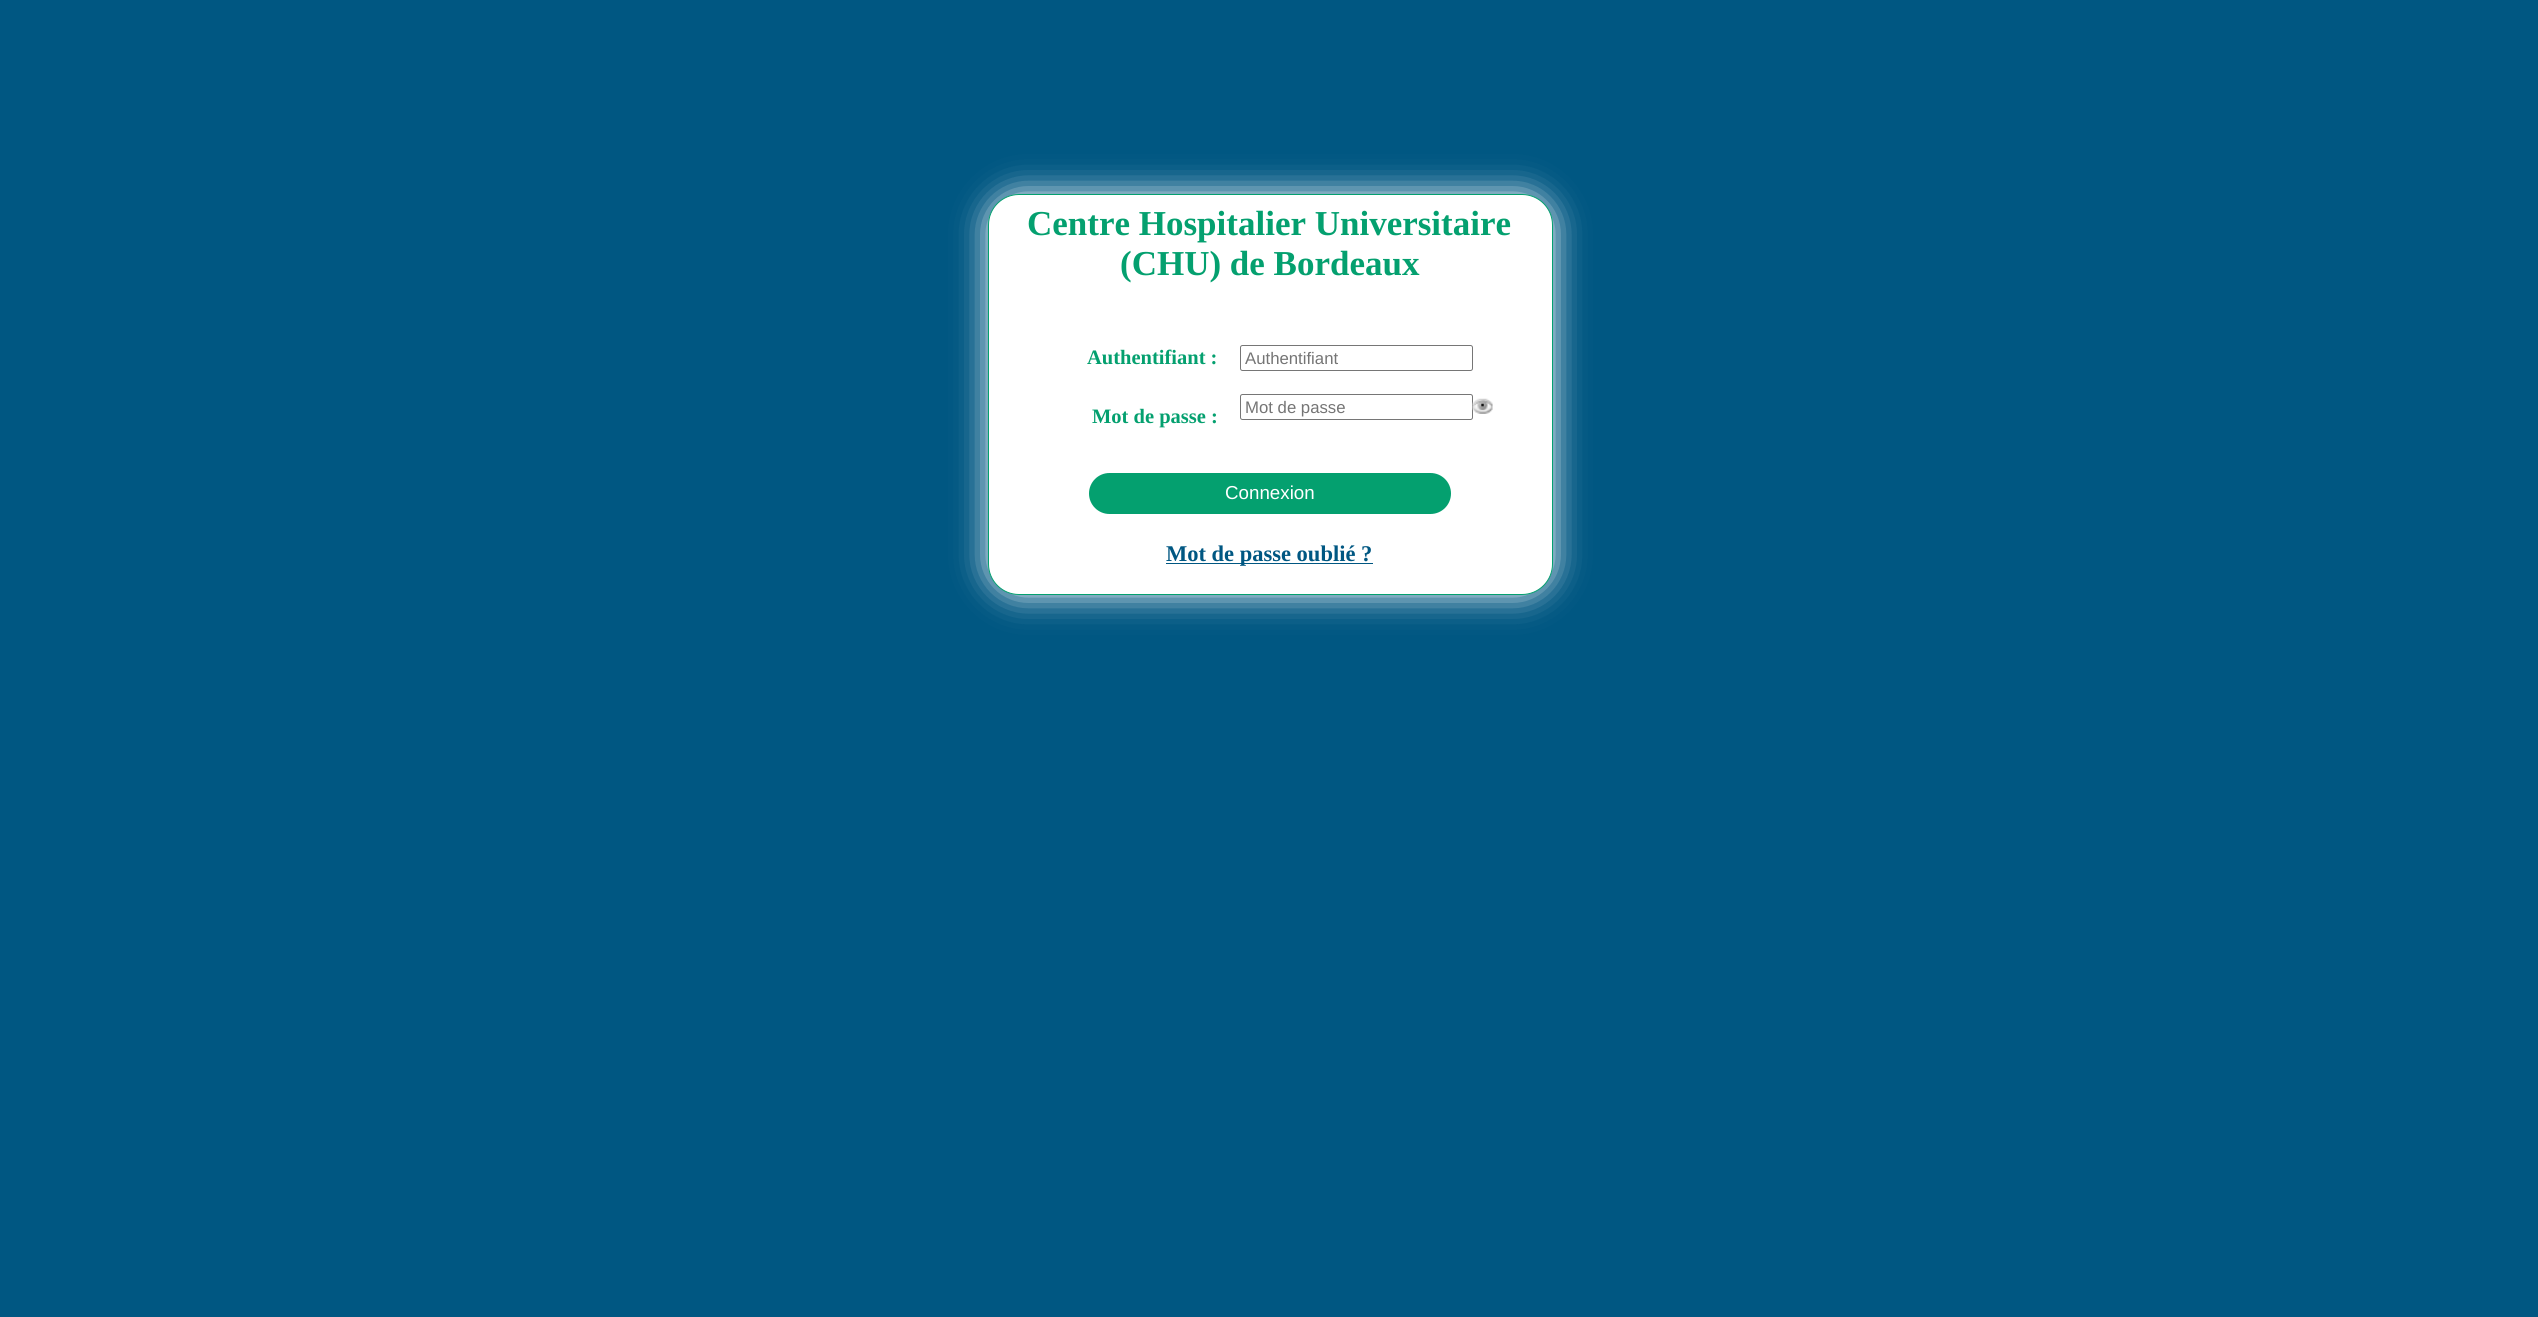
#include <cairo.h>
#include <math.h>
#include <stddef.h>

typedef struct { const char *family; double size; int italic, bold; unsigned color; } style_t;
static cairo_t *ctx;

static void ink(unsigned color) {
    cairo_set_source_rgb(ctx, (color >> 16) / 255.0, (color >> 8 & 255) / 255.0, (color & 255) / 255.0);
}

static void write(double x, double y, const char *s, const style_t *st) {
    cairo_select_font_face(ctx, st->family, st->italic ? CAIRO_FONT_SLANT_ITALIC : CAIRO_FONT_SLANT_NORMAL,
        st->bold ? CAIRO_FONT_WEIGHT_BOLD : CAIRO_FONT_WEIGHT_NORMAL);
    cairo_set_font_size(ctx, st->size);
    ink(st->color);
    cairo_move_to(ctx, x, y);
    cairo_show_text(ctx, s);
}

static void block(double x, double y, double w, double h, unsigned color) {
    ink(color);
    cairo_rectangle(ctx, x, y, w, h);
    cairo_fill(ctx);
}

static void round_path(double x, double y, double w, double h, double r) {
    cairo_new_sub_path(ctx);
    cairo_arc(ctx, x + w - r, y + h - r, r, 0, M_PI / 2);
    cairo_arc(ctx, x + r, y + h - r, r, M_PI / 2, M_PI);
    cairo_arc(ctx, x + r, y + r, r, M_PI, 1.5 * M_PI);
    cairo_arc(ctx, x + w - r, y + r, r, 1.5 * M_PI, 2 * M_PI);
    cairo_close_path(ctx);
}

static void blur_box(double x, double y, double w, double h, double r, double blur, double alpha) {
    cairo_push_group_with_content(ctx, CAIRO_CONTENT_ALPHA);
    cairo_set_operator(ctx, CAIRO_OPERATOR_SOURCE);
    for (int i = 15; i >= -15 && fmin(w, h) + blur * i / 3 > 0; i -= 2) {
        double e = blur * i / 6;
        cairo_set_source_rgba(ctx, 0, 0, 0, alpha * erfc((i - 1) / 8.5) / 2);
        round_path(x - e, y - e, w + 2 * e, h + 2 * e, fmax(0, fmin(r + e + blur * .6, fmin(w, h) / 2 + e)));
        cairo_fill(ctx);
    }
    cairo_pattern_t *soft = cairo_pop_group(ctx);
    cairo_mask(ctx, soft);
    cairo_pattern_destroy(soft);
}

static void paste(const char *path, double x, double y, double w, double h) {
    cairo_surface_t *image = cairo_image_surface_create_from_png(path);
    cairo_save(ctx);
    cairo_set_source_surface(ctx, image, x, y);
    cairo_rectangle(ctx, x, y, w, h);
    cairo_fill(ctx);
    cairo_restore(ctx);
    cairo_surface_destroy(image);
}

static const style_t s1 = {"Liberation Serif", 35, 0, 1, 0x04a06f};
static const style_t s2 = {"Liberation Serif", 20.5, 0, 1, 0x04a06f};
static const style_t s3 = {"Liberation Sans", 16.75, 0, 0, 0x757575};
static const style_t s4 = {"Liberation Sans", 18.75, 0, 0, 0xffffff};
static const style_t s5 = {"Liberation Serif", 22.5, 0, 1, 0x005782};

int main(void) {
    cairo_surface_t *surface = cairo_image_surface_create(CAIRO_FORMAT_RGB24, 2538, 1317);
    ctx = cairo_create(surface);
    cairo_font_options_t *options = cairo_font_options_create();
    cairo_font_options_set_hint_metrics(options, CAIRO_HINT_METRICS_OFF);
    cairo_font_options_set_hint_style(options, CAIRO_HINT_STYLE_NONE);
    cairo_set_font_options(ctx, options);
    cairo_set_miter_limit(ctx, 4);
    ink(0x005782);
    cairo_paint(ctx);
    ink(0xffffff);
    blur_box(988, 194, 565, 401, 31, 16, 1);
    ink(0xffffff);
    round_path(988.5, 194.5, 564, 400, 30.5);
    cairo_fill_preserve(ctx);
    ink(0x04a06f);
    cairo_set_line_width(ctx, 1);
    cairo_stroke(ctx);
    write(1027, 235, "Centre Hospitalier Universitaire", &s1);
    write(1120, 275, "(CHU) de Bordeaux", &s1);
    write(1087, 364, "Authentifiant :", &s2);
    round_path(1240.5, 345.5, 232, 25, 2);
    ink(0x767676);
    cairo_stroke(ctx);
    write(1245, 364, "Authentifiant", &s3);
    write(1092, 423, "Mot de passe :", &s2);
    round_path(1240.5, 394.5, 232, 25, 2);
    ink(0x767676);
    cairo_stroke(ctx);
    write(1245, 413, "Mot de passe", &s3);
    paste("pic1.png", 1472, 398, 21, 16);
    ink(0x04a06f);
    round_path(1089, 473, 362, 41, 20.5);
    cairo_fill(ctx);
    write(1225, 499, "Connexion", &s4);
    block(1166, 563, 207, 1, 0x005782);
    write(1166, 561, "Mot de passe oublié ?", &s5);
    cairo_surface_write_to_png(surface, "screenshot.png");
    cairo_font_options_destroy(options);
    cairo_destroy(ctx);
    cairo_surface_destroy(surface);
    return 0;
}
